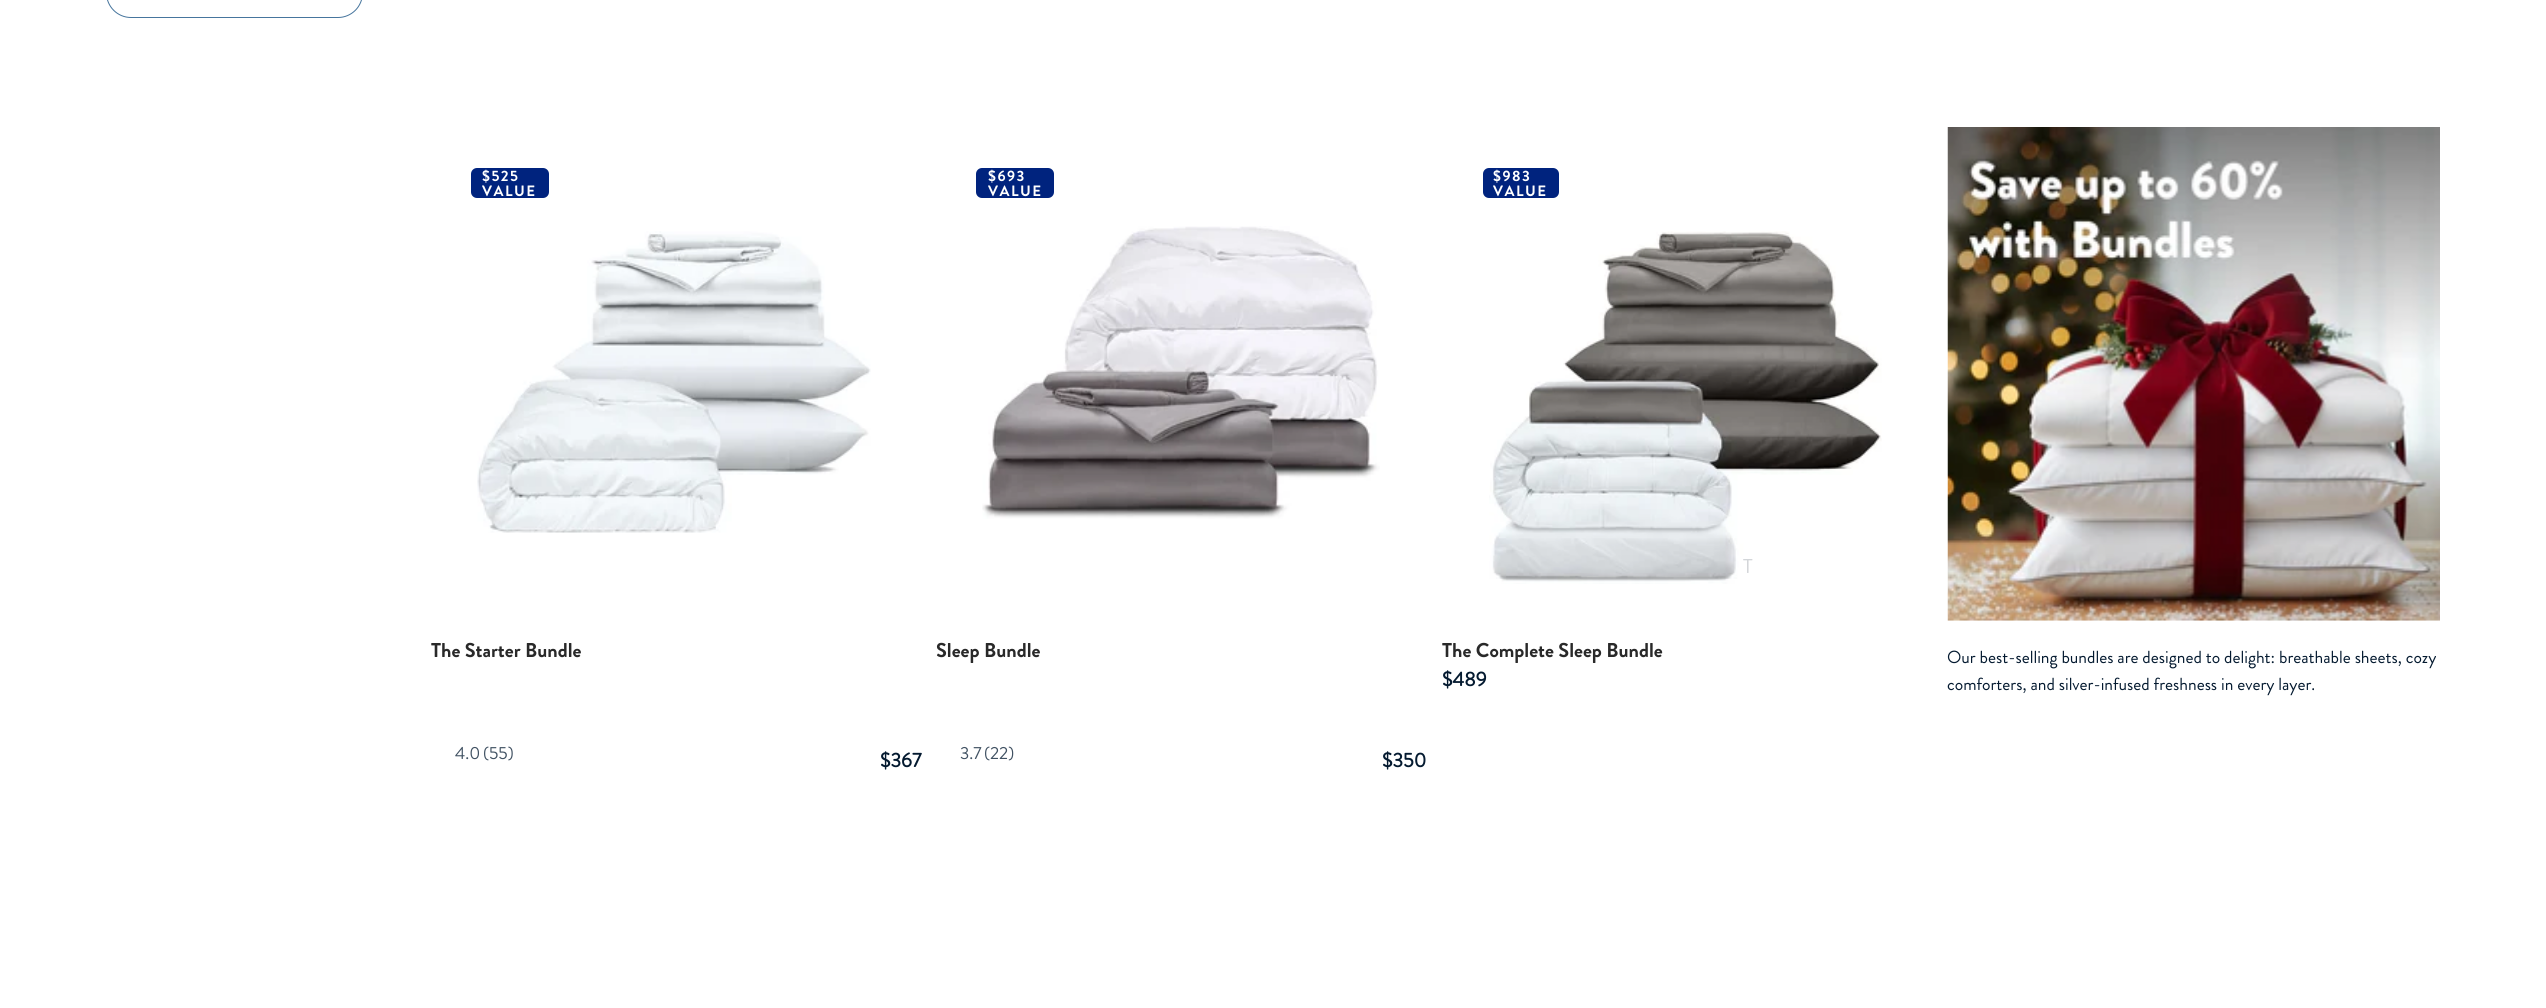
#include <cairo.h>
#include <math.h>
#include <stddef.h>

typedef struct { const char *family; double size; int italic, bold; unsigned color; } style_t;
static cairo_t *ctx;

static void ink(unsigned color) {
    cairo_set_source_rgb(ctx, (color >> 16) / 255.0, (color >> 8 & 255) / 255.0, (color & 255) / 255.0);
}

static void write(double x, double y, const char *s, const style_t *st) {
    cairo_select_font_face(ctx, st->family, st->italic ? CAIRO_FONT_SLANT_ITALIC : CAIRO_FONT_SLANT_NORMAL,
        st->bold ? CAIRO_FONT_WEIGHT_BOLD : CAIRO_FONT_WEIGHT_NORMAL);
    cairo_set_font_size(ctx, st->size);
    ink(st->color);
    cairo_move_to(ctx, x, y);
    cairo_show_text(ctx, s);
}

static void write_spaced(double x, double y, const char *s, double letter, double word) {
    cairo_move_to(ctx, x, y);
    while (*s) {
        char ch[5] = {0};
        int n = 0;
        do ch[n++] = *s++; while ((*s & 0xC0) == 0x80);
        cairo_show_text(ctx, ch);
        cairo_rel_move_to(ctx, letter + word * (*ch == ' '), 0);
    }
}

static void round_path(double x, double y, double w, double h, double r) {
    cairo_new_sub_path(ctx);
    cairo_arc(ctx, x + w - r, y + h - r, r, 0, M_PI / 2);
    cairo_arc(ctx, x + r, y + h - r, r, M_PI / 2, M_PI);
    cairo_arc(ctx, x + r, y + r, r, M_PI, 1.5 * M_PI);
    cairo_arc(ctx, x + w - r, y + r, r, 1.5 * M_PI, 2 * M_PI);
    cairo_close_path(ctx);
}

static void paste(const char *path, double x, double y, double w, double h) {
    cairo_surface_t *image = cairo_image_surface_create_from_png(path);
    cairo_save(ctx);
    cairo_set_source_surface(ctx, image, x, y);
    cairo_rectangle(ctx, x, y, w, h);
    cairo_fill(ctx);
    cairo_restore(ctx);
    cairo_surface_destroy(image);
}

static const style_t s1 = {"Brandon Grotesque", 20, 0, 1, 0x292929};
static const style_t s2 = {"Brandon Grotesque", 17.5, 0, 0, 0x405162};
static const style_t s3 = {"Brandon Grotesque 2", 20, 0, 1, 0x041a30};
static const style_t s4 = {"Brandon Grotesque", 20, 0, 0, 0xd3d6d9};
static const style_t s5 = {"Brandon Grotesque", 17.5, 0, 0, 0x041a30};

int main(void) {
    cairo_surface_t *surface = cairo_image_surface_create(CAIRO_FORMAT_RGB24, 2546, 1008);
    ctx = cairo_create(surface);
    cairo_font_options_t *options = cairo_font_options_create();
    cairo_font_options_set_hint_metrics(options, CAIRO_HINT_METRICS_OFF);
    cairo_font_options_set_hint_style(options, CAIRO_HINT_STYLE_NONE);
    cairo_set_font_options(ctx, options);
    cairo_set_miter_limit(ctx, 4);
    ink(0xffffff);
    cairo_paint(ctx);
    round_path(106.5, -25.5, 256, 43, 24.5);
    ink(0x46759d);
    cairo_set_line_width(ctx, 1);
    cairo_stroke(ctx);
    ink(0x00237e);
    round_path(471, 168, 78, 30, 6);
    cairo_fill(ctx);
    cairo_select_font_face(ctx, "Brandon Grotesque", CAIRO_FONT_SLANT_NORMAL, CAIRO_FONT_WEIGHT_BOLD);
    cairo_set_font_size(ctx, 15);
    ink(0xffffff);
    write_spaced(482, 181, "$525", 1.5, 0);
    write_spaced(482, 196, "VALUE", 1.5, 0);
    paste("pic1.png", 477, 231, 394, 302);
    write(431, 657, "The Starter Bundle", &s1);
    write(455, 759, "4.0", &s2);
    write(483, 759, "(55)", &s2);
    write(880, 767, "$367", &s3);
    ink(0x00237e);
    round_path(976, 168, 78, 30, 6);
    cairo_fill(ctx);
    cairo_select_font_face(ctx, "Brandon Grotesque", CAIRO_FONT_SLANT_NORMAL, CAIRO_FONT_WEIGHT_BOLD);
    cairo_set_font_size(ctx, 15);
    ink(0xffffff);
    write_spaced(988, 181, "$693", 1.5, 0);
    write_spaced(988, 196, "VALUE", 1.5, 0);
    paste("pic2.png", 982, 226, 398, 293);
    write(936, 657, "Sleep Bundle", &s1);
    write(960, 759, "3.7", &s2);
    write(984, 759, "(22)", &s2);
    write(1382, 767, "$350", &s3);
    ink(0x00237e);
    round_path(1483, 168, 76, 30, 6);
    cairo_fill(ctx);
    cairo_select_font_face(ctx, "Brandon Grotesque", CAIRO_FONT_SLANT_NORMAL, CAIRO_FONT_WEIGHT_BOLD);
    cairo_set_font_size(ctx, 15);
    ink(0xffffff);
    write_spaced(1493, 181, "$983", 1.5, 0);
    write_spaced(1493, 196, "VALUE", 1.5, 0);
    paste("pic3.png", 1489, 231, 393, 353);
    write(1743, 573, "T", &s4);
    write(1442, 657, "The Complete Sleep Bundle", &s1);
    write(1442, 686, "$489", &s3);
    paste("pic4.png", 1947, 127, 493, 494);
    write(1947, 663, "Our best-selling bundles are designed to delight: breathable sheets, cozy", &s5);
    write(1947, 690, "comforters, and silver-infused freshness in every layer.", &s5);
    cairo_surface_write_to_png(surface, "screenshot.png");
    cairo_font_options_destroy(options);
    cairo_destroy(ctx);
    cairo_surface_destroy(surface);
    return 0;
}
